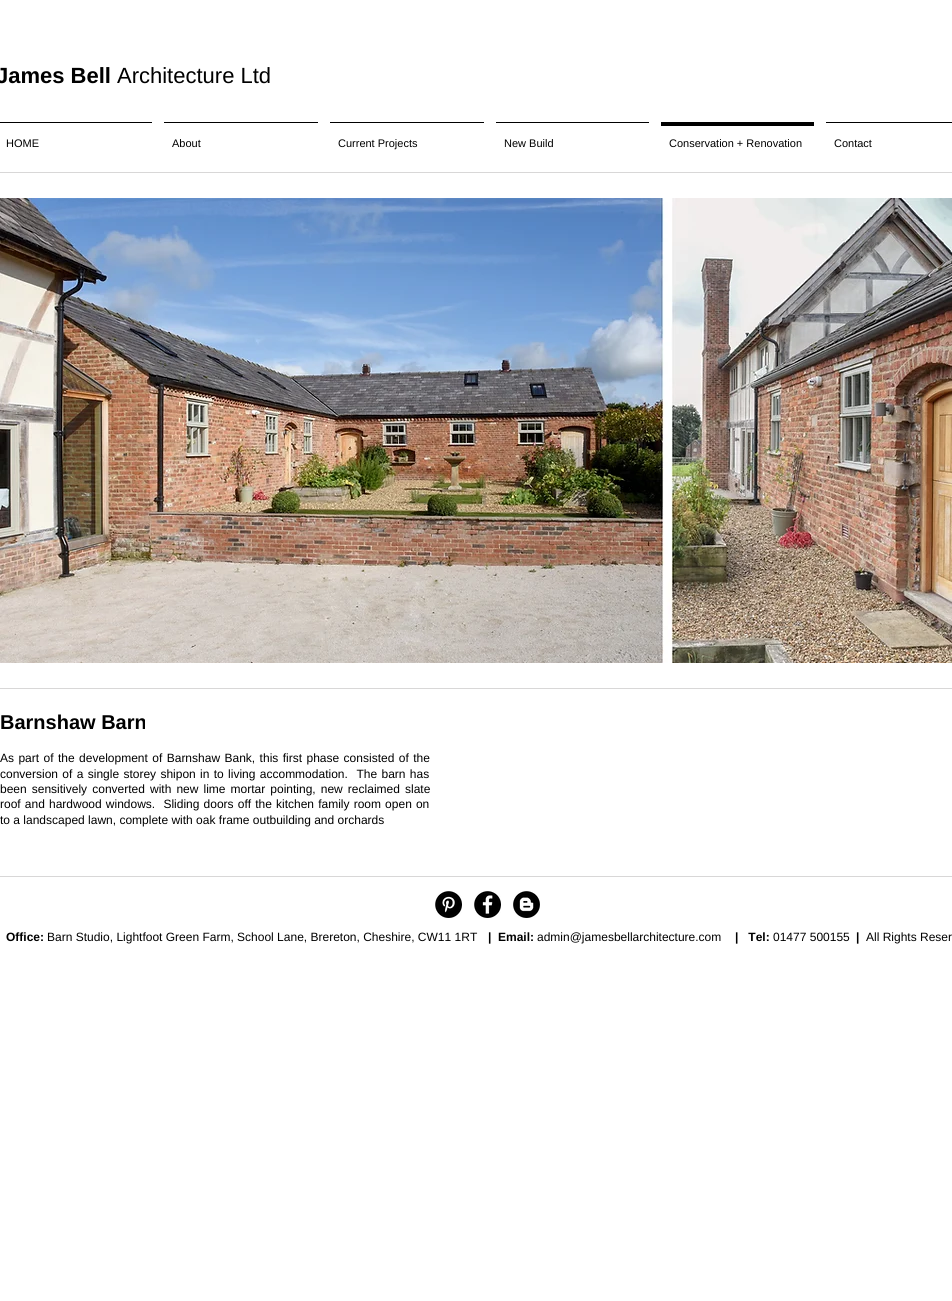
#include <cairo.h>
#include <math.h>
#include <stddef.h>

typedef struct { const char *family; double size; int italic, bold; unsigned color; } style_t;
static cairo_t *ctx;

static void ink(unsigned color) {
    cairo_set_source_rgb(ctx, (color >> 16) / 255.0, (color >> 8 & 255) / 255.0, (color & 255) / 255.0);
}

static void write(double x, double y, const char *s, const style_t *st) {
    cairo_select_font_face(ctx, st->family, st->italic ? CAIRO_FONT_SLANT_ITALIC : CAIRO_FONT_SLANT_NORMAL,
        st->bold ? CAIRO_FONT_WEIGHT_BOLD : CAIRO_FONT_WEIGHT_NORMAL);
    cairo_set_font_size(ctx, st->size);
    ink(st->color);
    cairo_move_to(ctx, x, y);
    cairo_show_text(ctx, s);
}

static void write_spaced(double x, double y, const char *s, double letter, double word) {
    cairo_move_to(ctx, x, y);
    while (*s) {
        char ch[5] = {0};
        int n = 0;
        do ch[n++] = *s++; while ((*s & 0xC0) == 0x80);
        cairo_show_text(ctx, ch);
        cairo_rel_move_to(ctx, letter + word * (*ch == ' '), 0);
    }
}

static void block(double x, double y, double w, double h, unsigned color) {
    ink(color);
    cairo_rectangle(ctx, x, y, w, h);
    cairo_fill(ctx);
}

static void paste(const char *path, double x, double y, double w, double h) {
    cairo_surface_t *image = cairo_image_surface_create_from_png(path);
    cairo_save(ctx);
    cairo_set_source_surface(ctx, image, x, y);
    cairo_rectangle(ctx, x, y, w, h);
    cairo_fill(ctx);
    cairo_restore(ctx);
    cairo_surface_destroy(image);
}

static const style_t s1 = {"Liberation Sans", 22, 0, 1, 0x000000};
static const style_t s2 = {"Liberation Sans", 22, 0, 0, 0x000000};
static const style_t s3 = {"Liberation Sans", 11, 0, 0, 0x000000};
static const style_t s4 = {"Liberation Sans", 20, 0, 1, 0x000000};
static const style_t s5 = {"Liberation Sans", 12, 0, 0, 0x000000};
static const style_t s6 = {"Liberation Sans", 12, 0, 1, 0x000000};

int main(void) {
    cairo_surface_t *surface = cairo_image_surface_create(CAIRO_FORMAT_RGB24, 952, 1301);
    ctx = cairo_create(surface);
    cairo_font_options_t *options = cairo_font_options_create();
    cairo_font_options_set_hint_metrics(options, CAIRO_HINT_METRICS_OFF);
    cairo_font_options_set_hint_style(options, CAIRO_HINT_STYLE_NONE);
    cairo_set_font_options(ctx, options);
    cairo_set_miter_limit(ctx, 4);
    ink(0xffffff);
    cairo_paint(ctx);
    write(-4, 83, "James Bell", &s1);
    write(117, 83, "Architecture Ltd", &s2);
    block(0, 122, 152, 1, 0x000000);
    write(6, 147, "HOME", &s3);
    block(164, 122, 154, 1, 0x000000);
    write(172, 147, "About", &s3);
    block(330, 122, 154, 1, 0x000000);
    write(338, 147, "Current Projects", &s3);
    block(496, 122, 153, 1, 0x000000);
    write(504, 147, "New Build", &s3);
    block(661, 122, 153, 4, 0x000000);
    write(669, 147, "Conservation + Renovation", &s3);
    block(826, 122, 126, 1, 0x000000);
    write(834, 147, "Contact", &s3);
    block(0, 172, 952, 1, 0xd8d7d7);
    paste("pic1.png", 0, 198, 952, 465);
    block(0, 688, 952, 1, 0xd8d7d7);
    write(0, 729, "Barnshaw Barn", &s4);
    cairo_select_font_face(ctx, "Liberation Sans", CAIRO_FONT_SLANT_NORMAL, CAIRO_FONT_WEIGHT_NORMAL);
    cairo_set_font_size(ctx, 12);
    write_spaced(0, 762, "As part of the development of Barnshaw Bank, this first phase consisted of the", 0, 1.1);
    write_spaced(0, 778, "conversion of a single storey shipon in to living accommodation.  The barn has", 0, 1);
    write_spaced(0, 793, "been sensitively converted with new lime mortar pointing, new reclaimed slate", 0, 1.75);
    write_spaced(0, 808, "roof and hardwood windows.  Sliding doors off the kitchen family room open on", 0, 0.8);
    write(0, 824, "to a landscaped lawn, complete with oak frame outbuilding and orchards", &s5);
    block(0, 876, 952, 1, 0xd8d7d7);
    paste("pic2.png", 435, 891, 27, 27);
    paste("pic3.png", 474, 891, 27, 27);
    paste("pic4.png", 513, 891, 27, 27);
    write(6, 941, "Office:", &s6);
    write(47, 941, "Barn Studio, Lightfoot Green Farm, School Lane, Brereton, Cheshire, CW11 1RT", &s5);
    write(488, 941, "|", &s6);
    write(498, 941, "Email:", &s6);
    write(537, 941, "admin@jamesbellarchitecture.com", &s5);
    write(735, 941, "|   Tel:", &s6);
    write(773, 941, "01477 500155", &s5);
    write(856, 941, "|", &s6);
    write(866, 941, "All Rights Reser", &s5);
    cairo_surface_write_to_png(surface, "screenshot.png");
    cairo_font_options_destroy(options);
    cairo_destroy(ctx);
    cairo_surface_destroy(surface);
    return 0;
}
